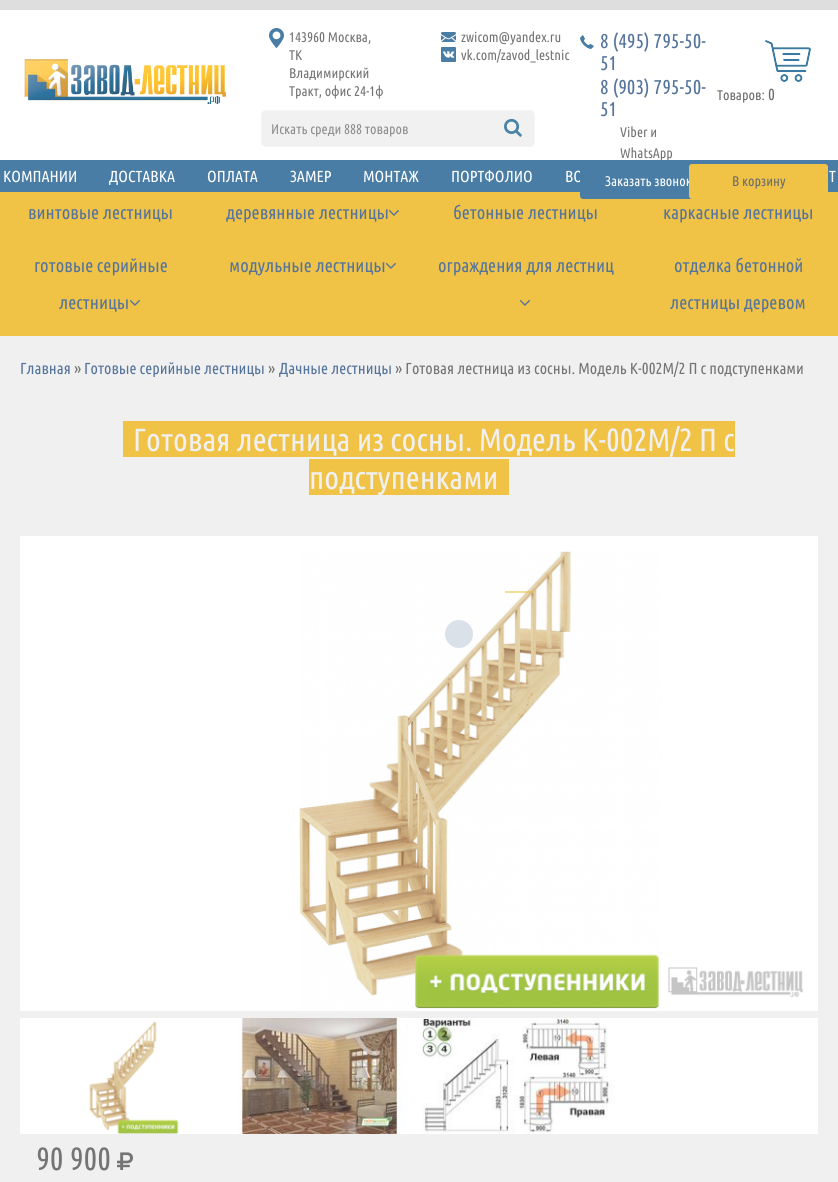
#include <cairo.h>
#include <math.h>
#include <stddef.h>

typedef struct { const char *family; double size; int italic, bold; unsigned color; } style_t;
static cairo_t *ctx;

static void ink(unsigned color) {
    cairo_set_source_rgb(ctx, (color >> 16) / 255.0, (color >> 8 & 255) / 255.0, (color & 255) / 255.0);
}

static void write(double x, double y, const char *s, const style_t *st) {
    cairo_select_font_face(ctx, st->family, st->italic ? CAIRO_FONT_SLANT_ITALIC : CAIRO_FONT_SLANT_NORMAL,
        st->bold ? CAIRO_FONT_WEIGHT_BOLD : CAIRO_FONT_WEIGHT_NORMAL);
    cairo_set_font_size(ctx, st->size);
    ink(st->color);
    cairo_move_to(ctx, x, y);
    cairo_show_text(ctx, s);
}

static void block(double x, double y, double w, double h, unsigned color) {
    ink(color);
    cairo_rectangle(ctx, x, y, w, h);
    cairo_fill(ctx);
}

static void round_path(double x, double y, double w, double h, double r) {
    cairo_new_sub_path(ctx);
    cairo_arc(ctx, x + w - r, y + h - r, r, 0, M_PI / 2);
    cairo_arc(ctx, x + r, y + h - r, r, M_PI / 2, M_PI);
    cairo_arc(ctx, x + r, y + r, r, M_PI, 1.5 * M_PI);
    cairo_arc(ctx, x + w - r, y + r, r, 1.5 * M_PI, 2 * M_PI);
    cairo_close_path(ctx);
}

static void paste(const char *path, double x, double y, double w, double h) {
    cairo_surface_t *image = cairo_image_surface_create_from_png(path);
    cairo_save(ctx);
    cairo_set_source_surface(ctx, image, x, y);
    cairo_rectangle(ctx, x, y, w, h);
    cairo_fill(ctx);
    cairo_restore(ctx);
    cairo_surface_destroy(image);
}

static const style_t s1 = {"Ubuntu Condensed", 14, 0, 0, 0x747474};
static const style_t s2 = {"Ubuntu Condensed", 14, 0, 0, 0x8e8e8e};
static const style_t s3 = {"Ubuntu Condensed", 20, 0, 0, 0x55749c};
static const style_t s4 = {"Ubuntu Condensed", 16, 0, 0, 0xffffff};
static const style_t s5 = {"Ubuntu Condensed", 14, 0, 0, 0xffffff};
static const style_t s6 = {"Ubuntu Condensed", 14, 0, 0, 0x6c6c6c};
static const style_t s7 = {"Ubuntu Condensed", 16, 0, 0, 0x6c6c6c};
static const style_t s8 = {"Ubuntu Condensed", 18.5, 0, 0, 0x55749c};
static const style_t s9 = {"Ubuntu Condensed", 16, 0, 0, 0x55749c};
static const style_t s10 = {"Ubuntu Condensed", 16, 0, 0, 0x747474};
static const style_t s11 = {"Ubuntu Condensed", 32, 0, 0, 0xf0f0f0};
static const style_t s12 = {"Ubuntu Condensed", 32, 0, 0, 0x747474};

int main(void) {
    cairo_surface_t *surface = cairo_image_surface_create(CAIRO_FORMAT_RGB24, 838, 1182);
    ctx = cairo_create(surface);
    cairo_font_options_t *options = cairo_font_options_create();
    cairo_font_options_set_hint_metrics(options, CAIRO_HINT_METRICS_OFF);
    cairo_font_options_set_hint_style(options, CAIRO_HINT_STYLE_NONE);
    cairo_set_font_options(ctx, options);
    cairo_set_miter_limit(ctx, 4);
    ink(0xdedede);
    cairo_paint(ctx);
    block(0, 336, 838, 846, 0xf0f0f0);
    block(0, 10, 838, 150, 0xffffff);
    paste("pic1.png", 24, 59, 202, 45);
    paste("pic2.png", 269, 28, 15, 20);
    write(289, 42, "143960 Москва,", &s1);
    write(289, 60, "ТК", &s1);
    write(289, 78, "Владимирский", &s1);
    write(289, 96, "Тракт, офис 24-1ф", &s1);
    paste("pic3.png", 441, 32, 15, 10);
    write(461, 42, "zwicom@yandex.ru", &s1);
    paste("pic4.png", 441, 47, 15, 15);
    write(461, 60, "vk.com/zavod_lestnic", &s1);
    ink(0xf1f1f1);
    round_path(261.5, 110.5, 273, 36, 4.5);
    cairo_fill_preserve(ctx);
    ink(0xf4f4f4);
    cairo_set_line_width(ctx, 1);
    cairo_stroke(ctx);
    write(271, 134, "Искать среди 888 товаров", &s2);
    paste("pic5.png", 504, 118, 18, 19);
    paste("pic6.png", 580, 35, 14, 14);
    write(600, 48, "8 (495) 795-50-", &s3);
    write(600, 70, "51", &s3);
    write(600, 94, "8 (903) 795-50-", &s3);
    write(600, 116, "51", &s3);
    write(620, 137, "Viber и", &s1);
    block(0, 160, 838, 32, 0x497da5);
    write(620, 158, "WhatsApp", &s1);
    write(565, 182, "ВО", &s4);
    block(0, 192, 838, 144, 0xf0c347);
    ink(0x497da5);
    round_path(580, 164, 139, 35, 3);
    cairo_fill(ctx);
    write(605, 186, "Заказать звонок", &s5);
    paste("pic7.png", 765, 40, 46, 42);
    write(717, 100, "Товаров:", &s6);
    write(768, 100, "0", &s7);
    ink(0xf0c347);
    round_path(689, 164, 139, 35, 3);
    cairo_fill(ctx);
    write(732, 186, "В корзину", &s6);
    write(3, 182, "КОМПАНИИ", &s4);
    write(109, 182, "ДОСТАВКА", &s4);
    write(207, 182, "ОПЛАТА", &s4);
    write(290, 182, "ЗАМЕР", &s4);
    write(363, 182, "МОНТАЖ", &s4);
    write(451, 182, "ПОРТФОЛИО", &s4);
    write(829, 182, "Т", &s4);
    write(28, 219, "винтовые лестницы", &s8);
    write(226, 219, "деревянные лестницы", &s8);
    paste("pic8.png", 388, 210, 11, 6);
    write(453, 219, "бетонные лестницы", &s8);
    write(663, 219, "каркасные лестницы", &s8);
    write(34, 272, "готовые серийные", &s8);
    write(59, 309, "лестницы", &s8);
    paste("pic8.png", 129, 300, 11, 6);
    write(229, 272, "модульные лестницы", &s8);
    paste("pic8.png", 385, 263, 11, 6);
    write(438, 272, "ограждения для лестниц", &s8);
    paste("pic8.png", 519, 300, 11, 6);
    write(674, 272, "отделка бетонной", &s8);
    write(670, 309, "лестницы деревом", &s8);
    write(20, 374, "Главная", &s9);
    write(74, 374, "»", &s10);
    write(84, 374, "Готовые серийные лестницы", &s9);
    write(268, 374, "»", &s10);
    write(279, 374, "Дачные лестницы", &s9);
    write(395, 374, "» Готовая лестница из сосны. Модель К-002М/2 П с подступенками", &s10);
    block(123, 421, 612, 36, 0xf0c347);
    write(133, 451, "Готовая лестница из сосны. Модель К-002М/2 П с", &s11);
    block(309, 459, 200, 36, 0xf0c347);
    write(309, 489, "подступенками", &s11);
    block(20, 536, 798, 475, 0xffffff);
    paste("pic9.png", 299, 551, 505, 458);
    block(20, 1018, 798, 116, 0xffffff);
    paste("pic10.png", 89, 1021, 90, 113);
    paste("pic11.png", 238, 1018, 170, 116);
    paste("pic12.png", 422, 1018, 193, 116);
    write(36, 1170, "90 900", &s12);
    paste("pic13.png", 117, 1152, 16, 18);
    cairo_set_source_rgba(ctx, 0.929, 0.714, 0.122, 0.18);
    cairo_rectangle(ctx, 505, 591, 28, 2);
    cairo_fill(ctx);
    cairo_rectangle(ctx, 505, 591, 28, 2);
    cairo_fill(ctx);
    cairo_rectangle(ctx, 505, 591, 28, 2);
    cairo_fill(ctx);
    ink(0xdae1e9);
    cairo_arc(ctx, 459, 634, 14, 0, 2 * M_PI);
    cairo_fill(ctx);
    cairo_surface_write_to_png(surface, "screenshot.png");
    cairo_font_options_destroy(options);
    cairo_destroy(ctx);
    cairo_surface_destroy(surface);
    return 0;
}
